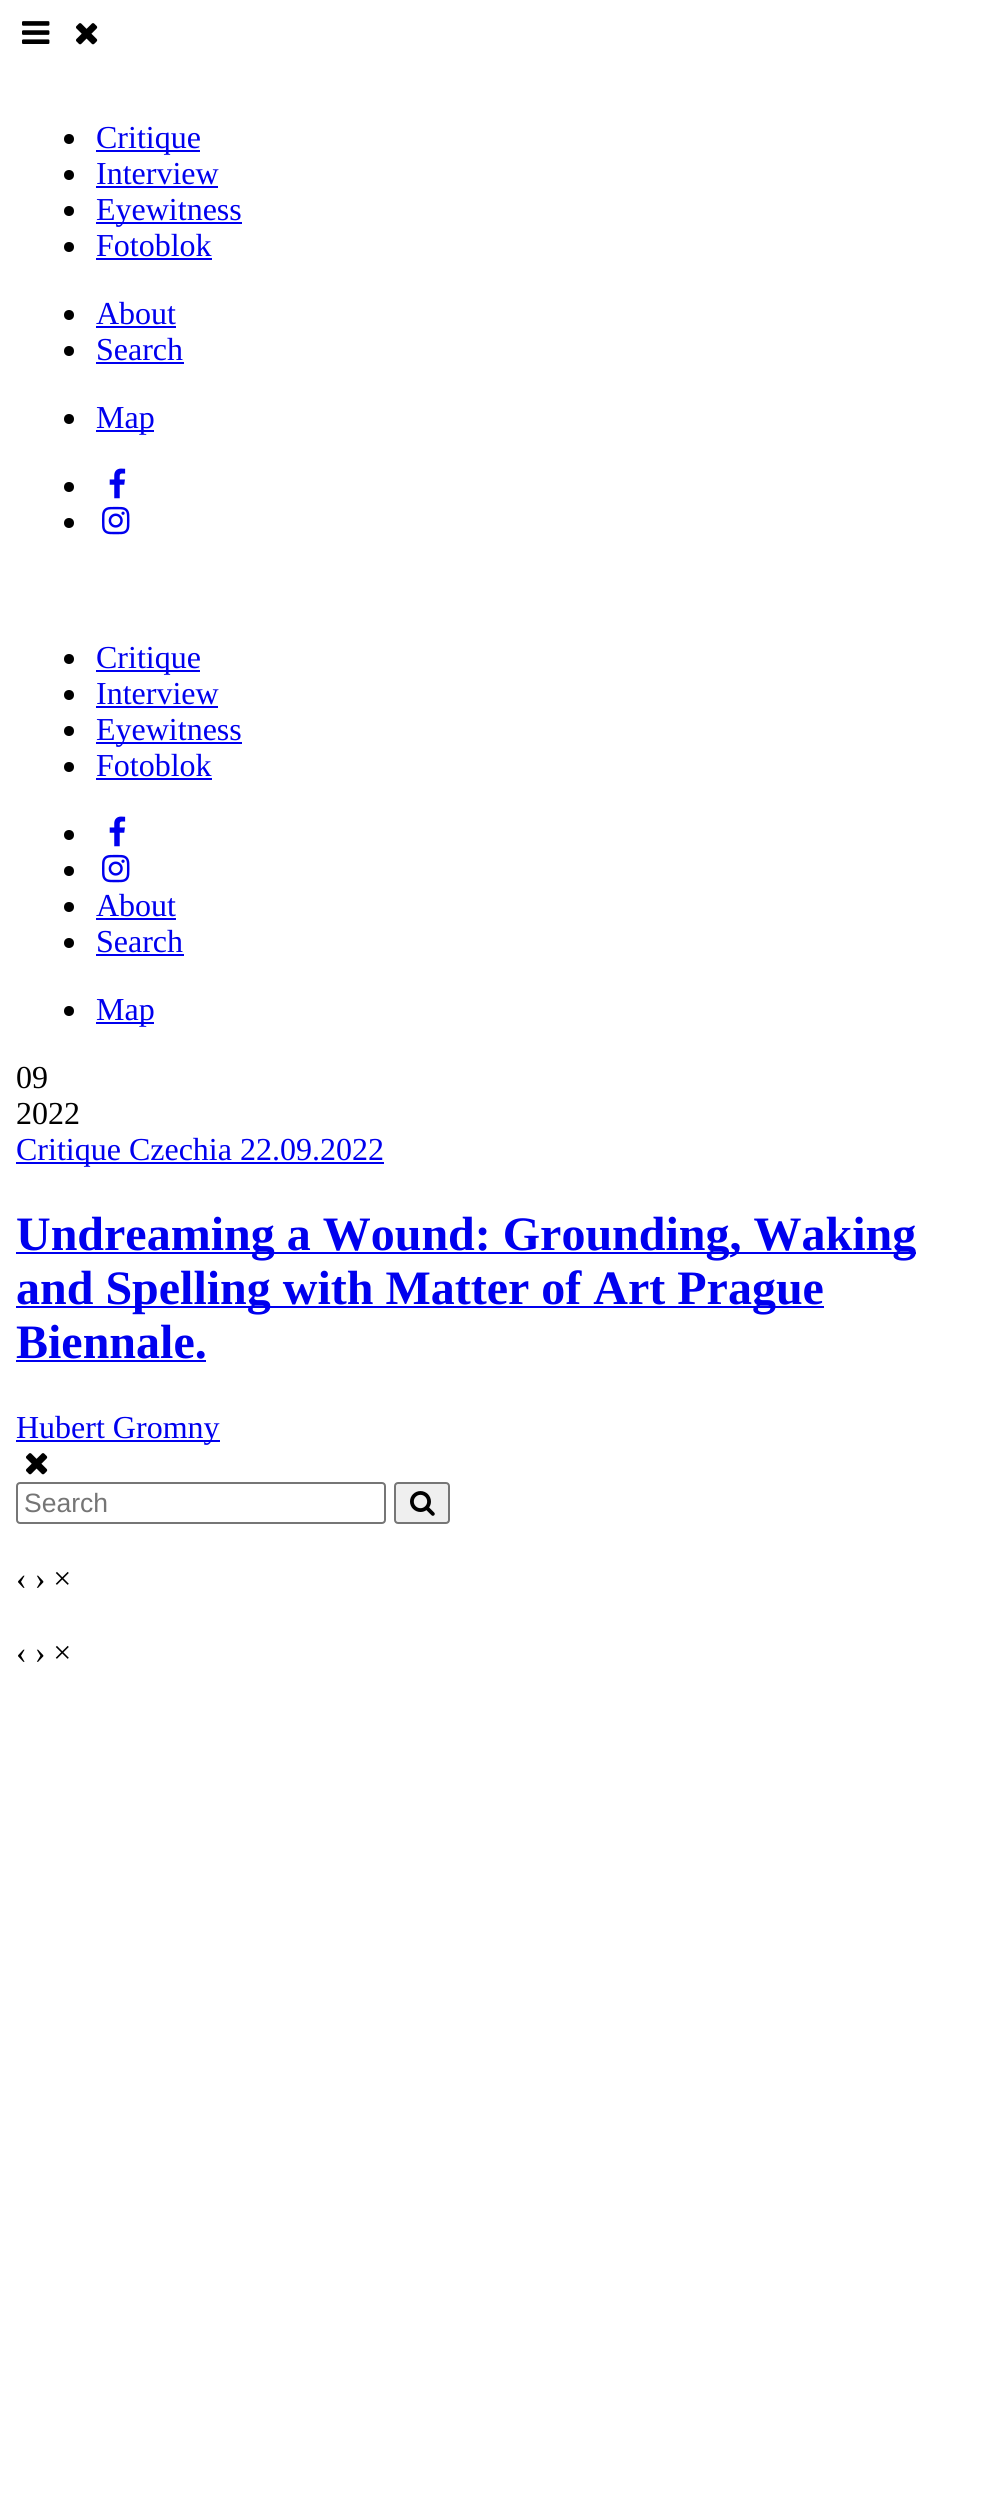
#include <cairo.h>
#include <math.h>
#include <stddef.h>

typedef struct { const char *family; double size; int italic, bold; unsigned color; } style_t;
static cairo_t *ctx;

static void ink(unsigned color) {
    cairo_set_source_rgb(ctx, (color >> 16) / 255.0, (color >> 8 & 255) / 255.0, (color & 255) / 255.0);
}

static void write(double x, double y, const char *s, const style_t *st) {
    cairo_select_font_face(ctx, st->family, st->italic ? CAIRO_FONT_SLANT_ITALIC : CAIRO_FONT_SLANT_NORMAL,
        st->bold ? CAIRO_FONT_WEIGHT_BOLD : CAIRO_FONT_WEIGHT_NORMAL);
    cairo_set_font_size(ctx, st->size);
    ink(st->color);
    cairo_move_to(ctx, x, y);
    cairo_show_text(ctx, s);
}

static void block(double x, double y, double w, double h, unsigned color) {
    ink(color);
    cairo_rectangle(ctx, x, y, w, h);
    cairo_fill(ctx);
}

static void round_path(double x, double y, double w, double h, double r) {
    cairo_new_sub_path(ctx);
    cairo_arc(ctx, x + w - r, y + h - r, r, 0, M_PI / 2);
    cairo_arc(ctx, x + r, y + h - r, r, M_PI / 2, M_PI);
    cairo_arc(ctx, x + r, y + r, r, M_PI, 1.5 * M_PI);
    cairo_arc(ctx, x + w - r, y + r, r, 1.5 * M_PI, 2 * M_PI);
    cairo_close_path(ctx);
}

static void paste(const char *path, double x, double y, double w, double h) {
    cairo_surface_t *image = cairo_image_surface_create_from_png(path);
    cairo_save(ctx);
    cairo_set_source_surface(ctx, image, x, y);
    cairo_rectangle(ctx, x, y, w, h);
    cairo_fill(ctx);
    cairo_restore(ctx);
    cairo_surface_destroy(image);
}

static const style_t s1 = {"Liberation Serif", 32, 0, 0, 0x0000ee};
static const style_t s2 = {"Liberation Serif", 32, 0, 0, 0x000000};
static const style_t s3 = {"Liberation Serif", 48, 0, 1, 0x0000ee};
static const style_t s4 = {"Liberation Sans", 26.5, 0, 0, 0x757575};

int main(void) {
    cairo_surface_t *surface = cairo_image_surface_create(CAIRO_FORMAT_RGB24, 997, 2493);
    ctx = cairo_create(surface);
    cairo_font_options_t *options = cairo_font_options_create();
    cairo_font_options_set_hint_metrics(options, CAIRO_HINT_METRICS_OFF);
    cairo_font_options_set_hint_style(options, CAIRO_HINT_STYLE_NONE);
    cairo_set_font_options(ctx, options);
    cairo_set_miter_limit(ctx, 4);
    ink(0xffffff);
    cairo_paint(ctx);
    paste("pic1.png", 22, 21, 28, 23);
    paste("pic2.png", 76, 23, 22, 22);
    ink(0x000000);
    cairo_arc(ctx, 69, 139, 5, 0, 2 * M_PI);
    cairo_fill(ctx);
    block(96, 150, 104, 2, 0x0000ee);
    write(96, 148, "Critique", &s1);
    ink(0x000000);
    cairo_new_path(ctx);
    cairo_arc(ctx, 69, 175, 5, 0, 2 * M_PI);
    cairo_fill(ctx);
    write(96, 184, "Interview", &s1);
    block(96, 186, 122, 2, 0x0000ee);
    ink(0x000000);
    cairo_new_path(ctx);
    cairo_arc(ctx, 69, 211, 5, 0, 2 * M_PI);
    cairo_fill(ctx);
    block(96, 222, 146, 2, 0x0000ee);
    write(96, 220, "Eyewitness", &s1);
    ink(0x000000);
    cairo_new_path(ctx);
    cairo_arc(ctx, 69, 247, 5, 0, 2 * M_PI);
    cairo_fill(ctx);
    write(96, 256, "Fotoblok", &s1);
    block(96, 258, 116, 2, 0x0000ee);
    ink(0x000000);
    cairo_new_path(ctx);
    cairo_arc(ctx, 69, 315, 5, 0, 2 * M_PI);
    cairo_fill(ctx);
    write(96, 324, "About", &s1);
    block(96, 326, 80, 2, 0x0000ee);
    ink(0x000000);
    cairo_new_path(ctx);
    cairo_arc(ctx, 69, 351, 5, 0, 2 * M_PI);
    cairo_fill(ctx);
    write(96, 360, "Search", &s1);
    block(96, 362, 88, 2, 0x0000ee);
    ink(0x000000);
    cairo_new_path(ctx);
    cairo_arc(ctx, 69, 419, 5, 0, 2 * M_PI);
    cairo_fill(ctx);
    block(96, 430, 58, 2, 0x0000ee);
    write(96, 428, "Map", &s1);
    ink(0x000000);
    cairo_new_path(ctx);
    cairo_arc(ctx, 69, 487, 5, 0, 2 * M_PI);
    cairo_fill(ctx);
    paste("pic3.png", 109, 468, 17, 31);
    cairo_arc(ctx, 69, 523, 5, 0, 2 * M_PI);
    cairo_fill(ctx);
    paste("pic4.png", 102, 506, 28, 29);
    cairo_arc(ctx, 69, 659, 5, 0, 2 * M_PI);
    cairo_fill(ctx);
    block(96, 670, 104, 2, 0x0000ee);
    write(96, 668, "Critique", &s1);
    ink(0x000000);
    cairo_new_path(ctx);
    cairo_arc(ctx, 69, 695, 5, 0, 2 * M_PI);
    cairo_fill(ctx);
    write(96, 704, "Interview", &s1);
    block(96, 706, 122, 2, 0x0000ee);
    ink(0x000000);
    cairo_new_path(ctx);
    cairo_arc(ctx, 69, 731, 5, 0, 2 * M_PI);
    cairo_fill(ctx);
    block(96, 742, 146, 2, 0x0000ee);
    write(96, 740, "Eyewitness", &s1);
    ink(0x000000);
    cairo_new_path(ctx);
    cairo_arc(ctx, 69, 767, 5, 0, 2 * M_PI);
    cairo_fill(ctx);
    write(96, 776, "Fotoblok", &s1);
    block(96, 778, 116, 2, 0x0000ee);
    ink(0x000000);
    cairo_new_path(ctx);
    cairo_arc(ctx, 69, 835, 5, 0, 2 * M_PI);
    cairo_fill(ctx);
    paste("pic3.png", 109, 816, 17, 31);
    cairo_arc(ctx, 69, 871, 5, 0, 2 * M_PI);
    cairo_fill(ctx);
    paste("pic4.png", 102, 854, 28, 29);
    cairo_arc(ctx, 69, 907, 5, 0, 2 * M_PI);
    cairo_fill(ctx);
    write(96, 916, "About", &s1);
    block(96, 918, 80, 2, 0x0000ee);
    ink(0x000000);
    cairo_new_path(ctx);
    cairo_arc(ctx, 69, 943, 5, 0, 2 * M_PI);
    cairo_fill(ctx);
    write(96, 952, "Search", &s1);
    block(96, 954, 88, 2, 0x0000ee);
    ink(0x000000);
    cairo_new_path(ctx);
    cairo_arc(ctx, 69, 1011, 5, 0, 2 * M_PI);
    cairo_fill(ctx);
    block(96, 1022, 58, 2, 0x0000ee);
    write(96, 1020, "Map", &s1);
    write(16, 1088, "09", &s2);
    write(16, 1124, "2022", &s2);
    block(16, 1162, 368, 2, 0x0000ee);
    write(16, 1160, "Critique Czechia 22.09.2022", &s1);
    block(16, 1252, 900, 2, 0x0000ee);
    write(16, 1250, "Undreaming a Wound: Grounding, Waking", &s3);
    block(16, 1306, 808, 2, 0x0000ee);
    write(16, 1304, "and Spelling with Matter of Art Prague", &s3);
    write(16, 1358, "Biennale.", &s3);
    block(16, 1360, 190, 2, 0x0000ee);
    block(16, 1440, 204, 2, 0x0000ee);
    write(16, 1438, "Hubert Gromny", &s1);
    paste("pic2.png", 26, 1453, 22, 22);
    round_path(17, 1483, 368, 40, 3);
    ink(0x767676);
    cairo_stroke(ctx);
    write(24, 1512, "Search", &s4);
    ink(0xefefef);
    round_path(395, 1483, 54, 40, 3);
    cairo_fill_preserve(ctx);
    ink(0x767676);
    cairo_stroke(ctx);
    paste("pic5.png", 410, 1491, 25, 25);
    write(16, 1589, "‹ › ×", &s2);
    write(16, 1663, "‹ › ×", &s2);
    cairo_surface_write_to_png(surface, "screenshot.png");
    cairo_font_options_destroy(options);
    cairo_destroy(ctx);
    cairo_surface_destroy(surface);
    return 0;
}
